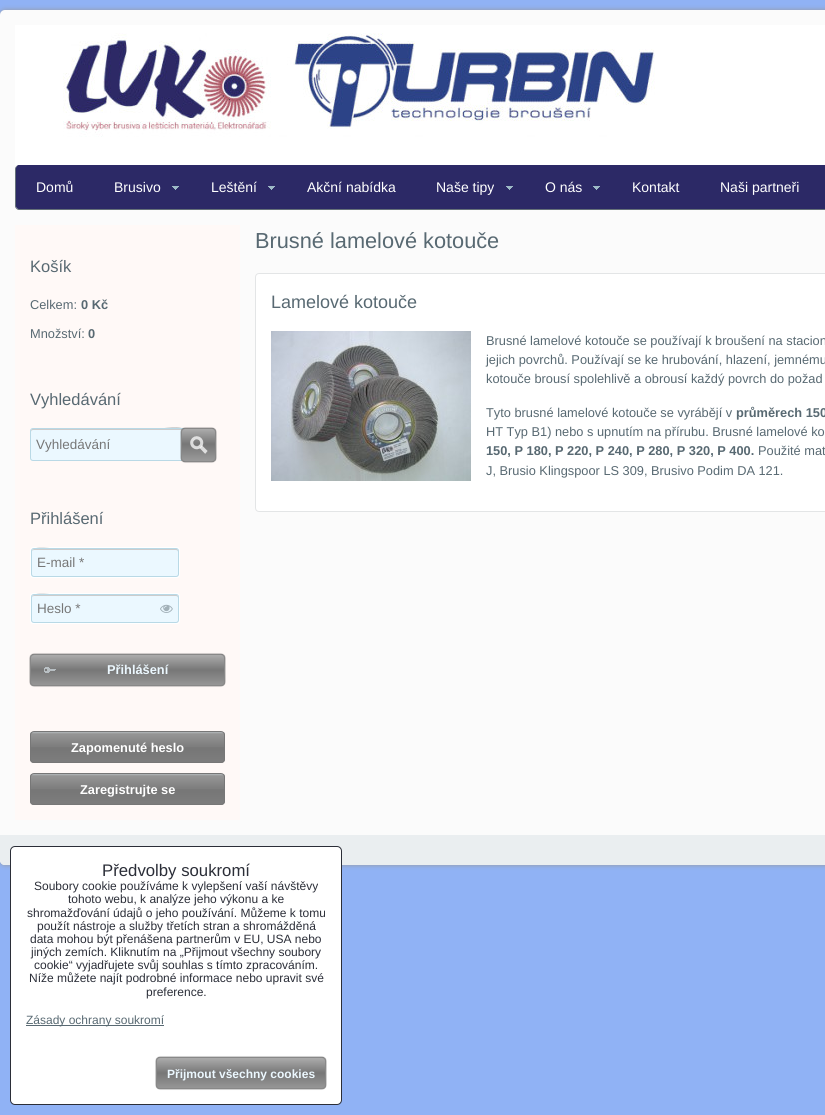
#include <cairo.h>
#include <math.h>
#include <stddef.h>

typedef struct { const char *family; double size; int italic, bold; unsigned color; } style_t;
static cairo_t *ctx;

static void ink(unsigned color) {
    cairo_set_source_rgb(ctx, (color >> 16) / 255.0, (color >> 8 & 255) / 255.0, (color & 255) / 255.0);
}

static void write(double x, double y, const char *s, const style_t *st) {
    cairo_select_font_face(ctx, st->family, st->italic ? CAIRO_FONT_SLANT_ITALIC : CAIRO_FONT_SLANT_NORMAL,
        st->bold ? CAIRO_FONT_WEIGHT_BOLD : CAIRO_FONT_WEIGHT_NORMAL);
    cairo_set_font_size(ctx, st->size);
    ink(st->color);
    cairo_move_to(ctx, x, y);
    cairo_show_text(ctx, s);
}

static void block(double x, double y, double w, double h, unsigned color) {
    ink(color);
    cairo_rectangle(ctx, x, y, w, h);
    cairo_fill(ctx);
}

static void round_path(double x, double y, double w, double h, double r) {
    cairo_new_sub_path(ctx);
    cairo_arc(ctx, x + w - r, y + h - r, r, 0, M_PI / 2);
    cairo_arc(ctx, x + r, y + h - r, r, M_PI / 2, M_PI);
    cairo_arc(ctx, x + r, y + r, r, M_PI, 1.5 * M_PI);
    cairo_arc(ctx, x + w - r, y + r, r, 1.5 * M_PI, 2 * M_PI);
    cairo_close_path(ctx);
}

static void blur_box(double x, double y, double w, double h, double r, double blur, double alpha) {
    cairo_push_group_with_content(ctx, CAIRO_CONTENT_ALPHA);
    cairo_set_operator(ctx, CAIRO_OPERATOR_SOURCE);
    for (int i = 15; i >= -15 && fmin(w, h) + blur * i / 3 > 0; i -= 2) {
        double e = blur * i / 6;
        cairo_set_source_rgba(ctx, 0, 0, 0, alpha * erfc((i - 1) / 8.5) / 2);
        round_path(x - e, y - e, w + 2 * e, h + 2 * e, fmax(0, fmin(r + e + blur * .6, fmin(w, h) / 2 + e)));
        cairo_fill(ctx);
    }
    cairo_pattern_t *soft = cairo_pop_group(ctx);
    cairo_mask(ctx, soft);
    cairo_pattern_destroy(soft);
}

static void paste(const char *path, double x, double y, double w, double h) {
    cairo_surface_t *image = cairo_image_surface_create_from_png(path);
    cairo_save(ctx);
    cairo_set_source_surface(ctx, image, x, y);
    cairo_rectangle(ctx, x, y, w, h);
    cairo_fill(ctx);
    cairo_restore(ctx);
    cairo_surface_destroy(image);
}

static const style_t s1 = {"Liberation Sans", 14, 0, 0, 0xffffff};
static const style_t s2 = {"Liberation Sans", 16.5, 0, 0, 0x586972};
static const style_t s3 = {"Liberation Sans", 12.8, 0, 0, 0x586972};
static const style_t s4 = {"Liberation Sans", 12.8, 0, 1, 0x586972};
static const style_t s5 = {"Liberation Sans", 13.5, 0, 0, 0x777777};
static const style_t s6 = {"Liberation Sans", 12.8, 0, 1, 0xecf8ff};
static const style_t s7 = {"Liberation Sans", 12.8, 0, 1, 0xffffff};
static const style_t s8 = {"Liberation Sans", 21.75, 0, 0, 0x586972};
static const style_t s9 = {"Liberation Sans", 18, 0, 0, 0x586972};
static const style_t s10 = {"Liberation Sans", 16.75, 0, 0, 0x2b2e38};
static const style_t s11 = {"Liberation Sans", 12, 0, 0, 0x2b2e38};
static const style_t s12 = {"Liberation Sans", 12, 0, 0, 0x586972};
static const style_t s13 = {"Liberation Sans", 12, 0, 1, 0xecf8ff};

int main(void) {
    cairo_surface_t *surface = cairo_image_surface_create(CAIRO_FORMAT_RGB24, 825, 1115);
    ctx = cairo_create(surface);
    cairo_font_options_t *options = cairo_font_options_create();
    cairo_font_options_set_hint_metrics(options, CAIRO_HINT_METRICS_OFF);
    cairo_font_options_set_hint_style(options, CAIRO_HINT_STYLE_NONE);
    cairo_set_font_options(ctx, options);
    cairo_set_miter_limit(ctx, 4);
    ink(0x90b2f5);
    cairo_paint(ctx);
    ink(0x999999);
    blur_box(0, 10, 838, 855, 5, 2.5, 1);
    ink(0xfbfbfb);
    round_path(0, 10, 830, 855, 5);
    cairo_fill(ctx);
    block(15, 25, 810, 140, 0xffffff);
    paste("pic1.png", 63, 33, 592, 104);
    ink(0x2c2966);
    cairo_new_path(ctx);
    cairo_move_to(ctx, 19, 165);
    cairo_line_to(ctx, 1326, 165);
    cairo_curve_to(ctx, 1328, 165, 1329, 167, 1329, 169);
    cairo_line_to(ctx, 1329, 206);
    cairo_curve_to(ctx, 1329, 208, 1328, 209, 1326, 209);
    cairo_line_to(ctx, 19, 209);
    cairo_curve_to(ctx, 17, 209, 16, 208, 16, 206);
    cairo_line_to(ctx, 16, 169);
    cairo_curve_to(ctx, 16, 167, 17, 165, 19, 165);
    cairo_close_path(ctx);
    cairo_fill(ctx);
    ink(0x657178);
    cairo_set_fill_rule(ctx, CAIRO_FILL_RULE_EVEN_ODD);
    cairo_new_path(ctx);
    cairo_move_to(ctx, 19, 165);
    cairo_line_to(ctx, 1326, 165);
    cairo_curve_to(ctx, 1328, 165, 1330, 167, 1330, 169);
    cairo_line_to(ctx, 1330, 206);
    cairo_curve_to(ctx, 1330, 208, 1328, 210, 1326, 210);
    cairo_line_to(ctx, 19, 210);
    cairo_curve_to(ctx, 17, 210, 15, 208, 15, 206);
    cairo_line_to(ctx, 15, 169);
    cairo_curve_to(ctx, 15, 167, 17, 165, 19, 165);
    cairo_close_path(ctx);
    cairo_move_to(ctx, 19, 165);
    cairo_line_to(ctx, 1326, 165);
    cairo_curve_to(ctx, 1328, 165, 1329, 167, 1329, 169);
    cairo_line_to(ctx, 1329, 206);
    cairo_curve_to(ctx, 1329, 208, 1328, 209, 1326, 209);
    cairo_line_to(ctx, 19, 209);
    cairo_curve_to(ctx, 17, 209, 16, 208, 16, 206);
    cairo_line_to(ctx, 16, 169);
    cairo_curve_to(ctx, 16, 167, 17, 165, 19, 165);
    cairo_close_path(ctx);
    cairo_fill(ctx);
    ink(0x2c2966);
    cairo_new_path(ctx);
    cairo_move_to(ctx, 20, 165);
    cairo_line_to(ctx, 94, 165);
    cairo_line_to(ctx, 94, 209);
    cairo_line_to(ctx, 20, 209);
    cairo_curve_to(ctx, 18, 209, 16, 207, 16, 205);
    cairo_line_to(ctx, 16, 169);
    cairo_curve_to(ctx, 16, 167, 18, 165, 20, 165);
    cairo_close_path(ctx);
    cairo_fill(ctx);
    write(36, 192, "Domů", &s1);
    write(114, 192, "Brusivo", &s1);
    paste("pic2.png", 172, 186, 7, 4);
    write(211, 192, "Leštění", &s1);
    paste("pic2.png", 268, 186, 7, 4);
    write(307, 192, "Akční nabídka", &s1);
    write(436, 192, "Naše tipy", &s1);
    paste("pic2.png", 506, 186, 7, 4);
    write(545, 192, "O nás", &s1);
    paste("pic2.png", 593, 186, 7, 4);
    write(632, 192, "Kontakt", &s1);
    write(720, 192, "Naši partneři", &s1);
    block(15, 225, 225, 595, 0xfff9f7);
    write(30, 272, "Košík", &s2);
    write(30, 309, "Celkem:", &s3);
    write(81, 309, "0 Kč", &s4);
    write(30, 338, "Množství:", &s3);
    write(88, 338, "0", &s4);
    write(30, 405, "Vyhledávání", &s2);
    ink(0xebf8ff);
    round_path(30, 428, 156, 33, 3);
    cairo_fill(ctx);
    ink(0xcccccc);
    cairo_set_fill_rule(ctx, CAIRO_FILL_RULE_WINDING);
    cairo_new_path(ctx);
    cairo_move_to(ctx, 33, 430);
    cairo_line_to(ctx, 183, 430);
    cairo_curve_to(ctx, 184, 430, 185, 431, 185, 432);
    cairo_curve_to(ctx, 185, 423, 160, 429, 158, 429);
    cairo_line_to(ctx, 32, 429);
    cairo_curve_to(ctx, 31, 430, 31, 431, 31, 432);
    cairo_curve_to(ctx, 31, 431, 32, 430, 33, 430);
    cairo_close_path(ctx);
    cairo_fill(ctx);
    round_path(30.5, 428.5, 155, 32, 2.5);
    ink(0xb9d9e6);
    cairo_set_line_width(ctx, 1);
    cairo_stroke(ctx);
    write(36, 449, "Vyhledávání", &s5);
    ink(0x444444);
    blur_box(181, 428, 35, 34, 4, 0.5, 1);
    paste("pic3.png", 181, 429, 35, 32);
    round_path(181.5, 428.5, 34, 33, 3.5);
    ink(0x888888);
    cairo_stroke(ctx);
    paste("pic4.png", 190, 436, 18, 18);
    write(30, 524, "Přihlášení", &s2);
    round_path(30.5, 547.5, 149, 30, 2.5);
    ink(0xffffff);
    cairo_stroke(ctx);
    ink(0xebf8ff);
    round_path(31, 548, 148, 29, 3);
    cairo_fill(ctx);
    ink(0xcccccc);
    cairo_new_path(ctx);
    cairo_move_to(ctx, 34, 550);
    cairo_line_to(ctx, 176, 550);
    cairo_curve_to(ctx, 177, 550, 178, 551, 178, 552);
    cairo_curve_to(ctx, 178, 551, 178, 550, 177, 549);
    cairo_line_to(ctx, 58, 549);
    cairo_curve_to(ctx, 54, 549, 32, 544, 32, 552);
    cairo_curve_to(ctx, 32, 551, 33, 550, 34, 550);
    cairo_close_path(ctx);
    cairo_fill(ctx);
    round_path(31.5, 548.5, 147, 28, 2.5);
    ink(0xb9d9e6);
    cairo_stroke(ctx);
    write(37, 567, "E-mail *", &s5);
    round_path(30.5, 593.5, 149, 30, 2.5);
    ink(0xffffff);
    cairo_stroke(ctx);
    ink(0xebf8ff);
    round_path(31, 594, 148, 29, 3);
    cairo_fill(ctx);
    ink(0xcccccc);
    cairo_new_path(ctx);
    cairo_move_to(ctx, 34, 596);
    cairo_line_to(ctx, 176, 596);
    cairo_curve_to(ctx, 177, 596, 178, 597, 178, 598);
    cairo_curve_to(ctx, 178, 597, 178, 596, 177, 595);
    cairo_line_to(ctx, 58, 595);
    cairo_curve_to(ctx, 54, 595, 32, 590, 32, 598);
    cairo_curve_to(ctx, 32, 597, 33, 596, 34, 596);
    cairo_close_path(ctx);
    cairo_fill(ctx);
    round_path(31.5, 594.5, 147, 28, 2.5);
    ink(0xb9d9e6);
    cairo_stroke(ctx);
    write(37, 613, "Heslo *", &s5);
    paste("pic5.png", 160, 604, 13, 9);
    ink(0x444444);
    blur_box(30, 654, 195, 32, 4, 0.5, 1);
    paste("pic6.png", 30, 655, 195, 31);
    round_path(30.5, 654.5, 194, 31, 3.5);
    ink(0x888888);
    cairo_stroke(ctx);
    paste("pic7.png", 44, 667, 12, 6);
    write(107, 674, "Přihlášení", &s6);
    paste("pic8.png", 30, 732, 195, 31);
    round_path(30.5, 731.5, 194, 31, 3.5);
    ink(0x777777);
    cairo_stroke(ctx);
    write(71, 752, "Zapomenuté heslo", &s7);
    paste("pic8.png", 30, 774, 195, 31);
    round_path(30.5, 773.5, 194, 31, 3.5);
    ink(0x777777);
    cairo_stroke(ctx);
    write(80, 794, "Zaregistrujte se", &s7);
    write(255, 248, "Brusné lamelové kotouče", &s8);
    ink(0xffffff);
    round_path(255.5, 273.5, 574, 238, 3.5);
    cairo_fill_preserve(ctx);
    ink(0xe3e5e6);
    cairo_stroke(ctx);
    write(271, 308, "Lamelové kotouče", &s9);
    paste("pic9.png", 271, 331, 200, 150);
    write(486, 345, "Brusné lamelové kotouče se používají k broušení na stacion", &s3);
    write(486, 364, "jejich povrchů. Používají se ke hrubování, hlazení, jemnému", &s3);
    write(486, 383, "kotouče brousí spolehlivě a obrousí každý povrch do požad", &s3);
    write(486, 417, "Tyto brusné lamelové kotouče se vyrábějí v", &s3);
    write(736, 417, "průměrech 150", &s4);
    write(486, 436, "HT Typ B1) nebo s upnutím na přírubu. Brusné lamelové ko", &s3);
    write(486, 455, "150, P 180, P 220, P 240, P 280, P 320, P 400.", &s4);
    write(758, 455, "Použité mat", &s3);
    write(486, 475, "J, Brusio Klingspoor LS 309, Brusivo Podim DA 121.", &s3);
    ink(0xeaeef0);
    cairo_new_path(ctx);
    cairo_move_to(ctx, 0, 835);
    cairo_line_to(ctx, 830, 835);
    cairo_line_to(ctx, 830, 860);
    cairo_curve_to(ctx, 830, 863, 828, 865, 825, 865);
    cairo_line_to(ctx, 5, 865);
    cairo_curve_to(ctx, 2, 865, 0, 863, 0, 860);
    cairo_close_path(ctx);
    cairo_fill(ctx);
    ink(0xffffff);
    round_path(10.5, 846.5, 331, 258, 4.5);
    cairo_fill_preserve(ctx);
    ink(0x2b2e38);
    cairo_stroke(ctx);
    write(102, 876, "Předvolby soukromí", &s10);
    write(34, 890, "Soubory cookie používáme k vylepšení vaší návštěvy", &s11);
    write(68, 903, "tohoto webu, k analýze jeho výkonu a ke", &s11);
    write(27, 917, "shromažďování údajů o jeho používání. Můžeme k tomu", &s11);
    write(37, 930, "použít nástroje a služby třetích stran a shromážděná", &s11);
    write(30, 943, "data mohou být přenášena partnerům v EU, USA nebo", &s11);
    write(31, 956, "jiných zemích. Kliknutím na „Přijmout všechny soubory", &s11);
    write(34, 969, "cookie“ vyjadřujete svůj souhlas s tímto zpracováním.", &s11);
    write(29, 982, "Níže můžete najít podrobné informace nebo upravit své", &s11);
    write(146, 996, "preference.", &s11);
    block(26, 1025, 138, 1, 0x586972);
    write(26, 1024, "Zásady ochrany soukromí", &s12);
    ink(0x444444);
    blur_box(156, 1057, 170, 32, 4, 0.5, 1);
    paste("pic10.png", 156, 1058, 170, 31);
    round_path(156.5, 1057.5, 169, 31, 3.5);
    ink(0x888888);
    cairo_stroke(ctx);
    write(167, 1078, "Přijmout všechny cookies", &s13);
    cairo_surface_write_to_png(surface, "screenshot.png");
    cairo_font_options_destroy(options);
    cairo_destroy(ctx);
    cairo_surface_destroy(surface);
    return 0;
}
